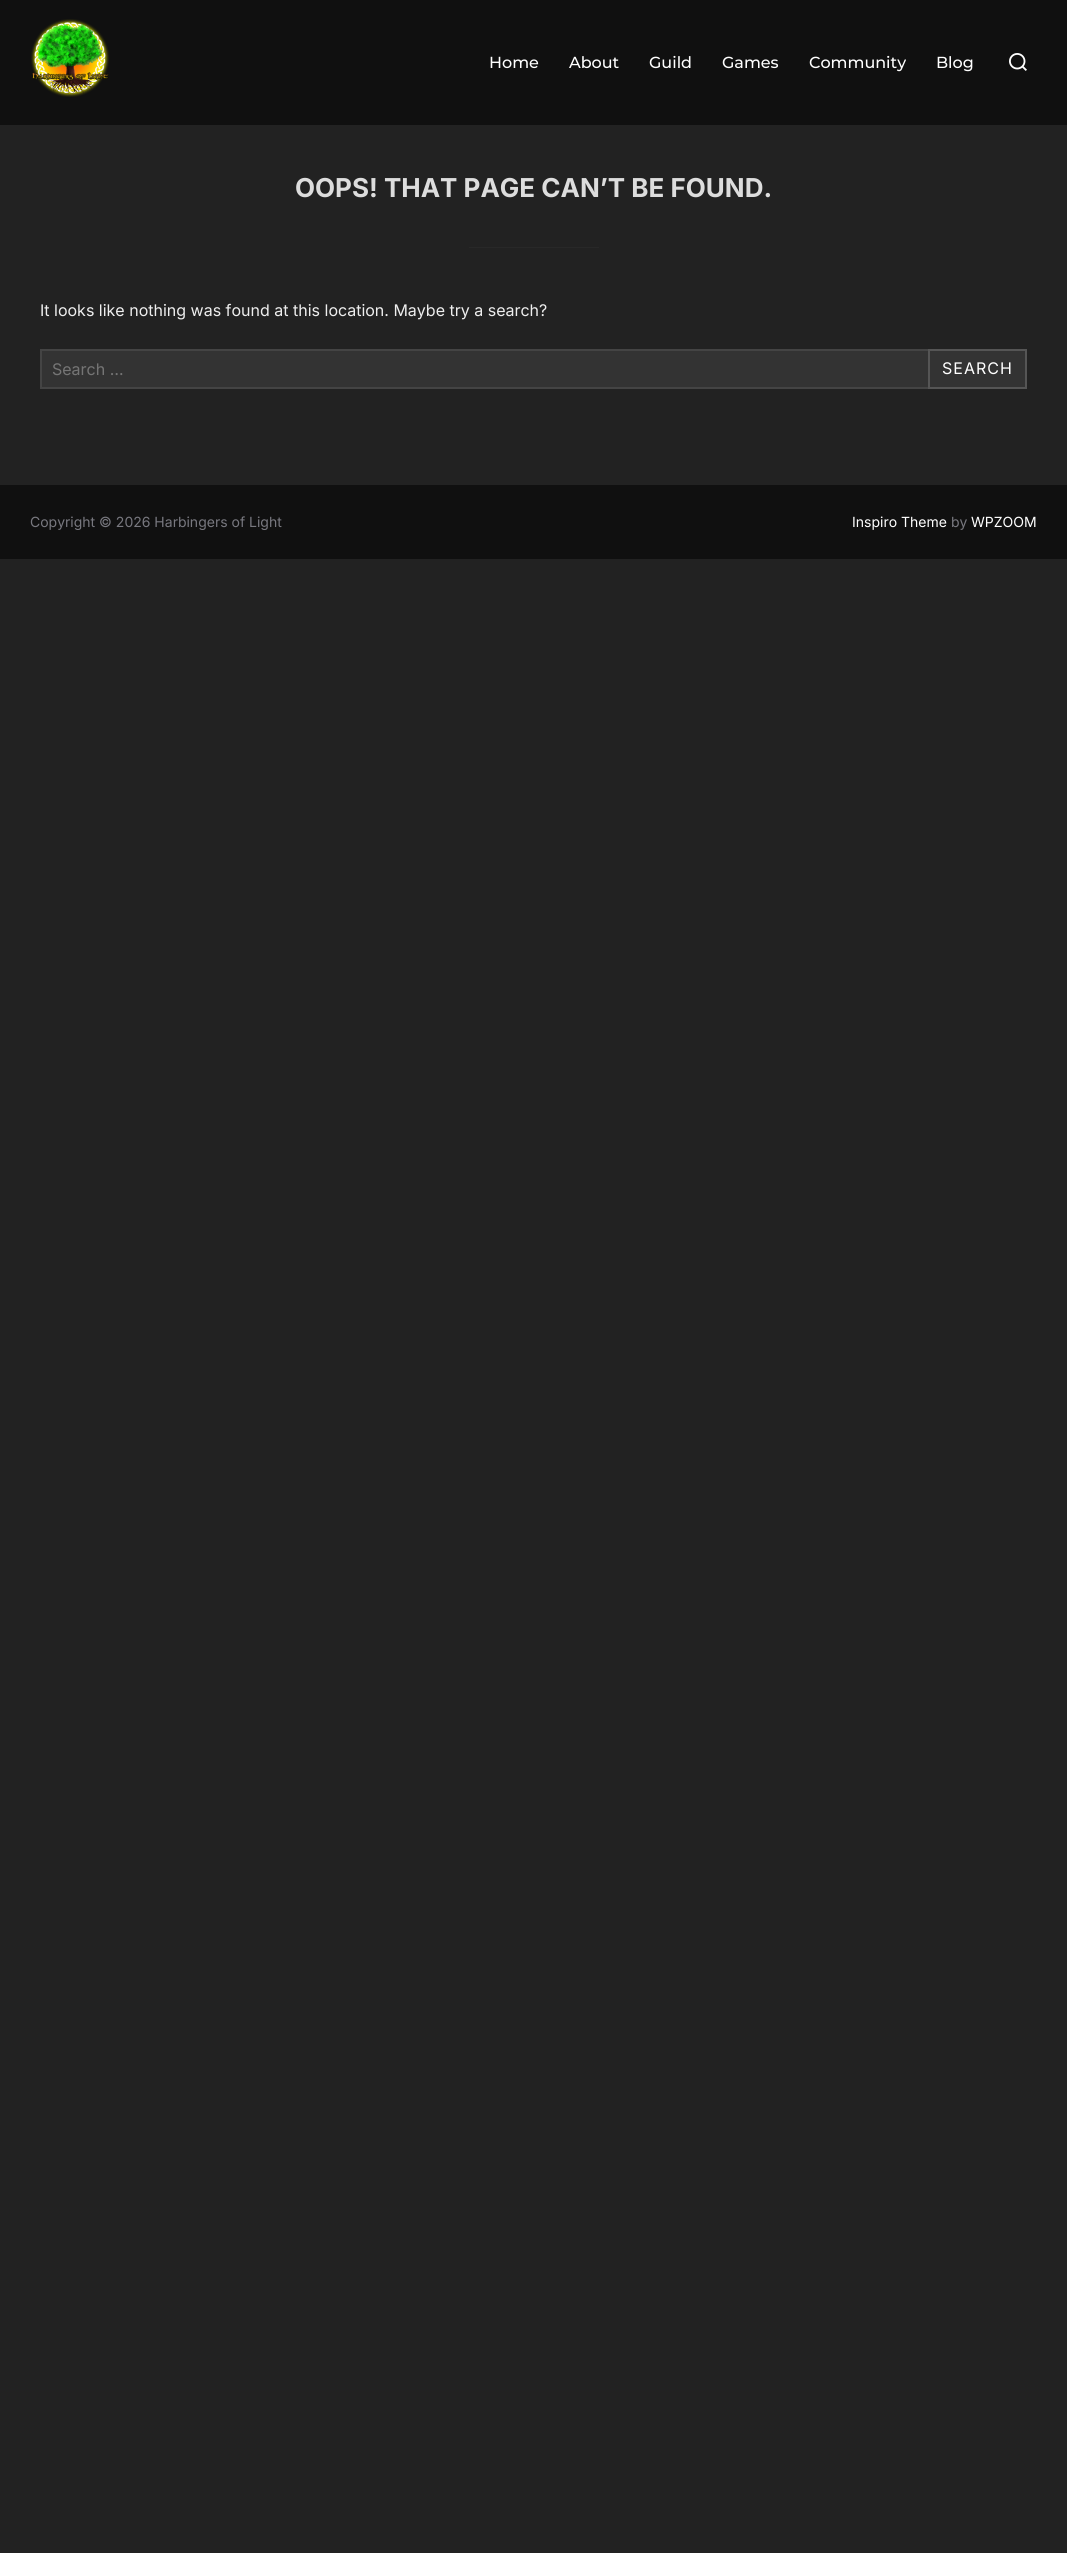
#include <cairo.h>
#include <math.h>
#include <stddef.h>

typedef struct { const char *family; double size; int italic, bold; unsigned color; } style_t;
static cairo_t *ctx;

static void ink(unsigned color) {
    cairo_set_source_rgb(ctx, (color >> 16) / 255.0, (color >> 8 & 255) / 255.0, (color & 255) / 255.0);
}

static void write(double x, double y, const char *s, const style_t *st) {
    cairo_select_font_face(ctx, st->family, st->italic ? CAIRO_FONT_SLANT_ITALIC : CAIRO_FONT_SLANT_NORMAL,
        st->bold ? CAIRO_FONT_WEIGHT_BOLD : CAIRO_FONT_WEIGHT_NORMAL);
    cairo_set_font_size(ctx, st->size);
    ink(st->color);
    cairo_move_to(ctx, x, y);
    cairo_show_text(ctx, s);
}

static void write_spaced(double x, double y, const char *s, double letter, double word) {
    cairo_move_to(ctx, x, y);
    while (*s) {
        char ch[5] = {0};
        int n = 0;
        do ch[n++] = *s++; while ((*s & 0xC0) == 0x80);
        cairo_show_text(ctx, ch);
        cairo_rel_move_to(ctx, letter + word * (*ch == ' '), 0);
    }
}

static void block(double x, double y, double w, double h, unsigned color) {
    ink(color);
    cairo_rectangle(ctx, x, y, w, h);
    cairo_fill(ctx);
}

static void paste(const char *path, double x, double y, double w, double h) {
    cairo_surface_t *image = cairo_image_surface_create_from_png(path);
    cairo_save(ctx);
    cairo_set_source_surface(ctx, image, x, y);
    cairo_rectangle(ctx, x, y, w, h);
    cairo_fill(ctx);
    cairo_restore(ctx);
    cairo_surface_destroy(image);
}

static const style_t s1 = {"Montserrat Medium", 16, 0, 0, 0xffffff};
static const style_t s2 = {"Inter", 26, 0, 1, 0xdddddd};
static const style_t s3 = {"Inter", 16, 0, 0, 0xeeeeee};
static const style_t s4 = {"Inter", 16, 0, 0, 0x757575};
static const style_t s5 = {"Inter", 14, 0, 0, 0x78787f};
static const style_t s6 = {"Inter", 14, 0, 0, 0xffffff};

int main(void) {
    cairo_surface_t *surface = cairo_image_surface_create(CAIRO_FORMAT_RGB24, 1067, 2553);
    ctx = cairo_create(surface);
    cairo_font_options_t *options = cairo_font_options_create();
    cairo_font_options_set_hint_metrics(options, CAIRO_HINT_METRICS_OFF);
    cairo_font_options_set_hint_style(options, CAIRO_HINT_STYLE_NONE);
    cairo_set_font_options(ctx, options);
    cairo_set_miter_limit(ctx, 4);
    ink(0x222222);
    cairo_paint(ctx);
    block(0, 0, 1067, 125, 0x101010);
    paste("pic1.png", 31, 19, 78, 78);
    write(489, 68, "Home", &s1);
    write(569, 68, "About", &s1);
    write(649, 68, "Guild", &s1);
    write(722, 68, "Games", &s1);
    write(809, 68, "Community", &s1);
    write(936, 68, "Blog", &s1);
    paste("pic2.png", 1009, 53, 18, 18);
    write(295, 197, "OOPS! THAT PAGE CAN’T BE FOUND.", &s2);
    block(469, 247, 130, 1, 0x282828);
    write(40, 316, "It looks like nothing was found at this location. Maybe try a search?", &s3);
    ink(0x333333);
    cairo_rectangle(ctx, 41, 350, 985, 38);
    cairo_fill_preserve(ctx);
    ink(0x444444);
    cairo_stroke(ctx);
    write(52, 375, "Search …", &s4);
    cairo_rectangle(ctx, 929, 350, 97, 38);
    ink(0x555555);
    cairo_stroke(ctx);
    ink(0xffffff);
    write_spaced(942, 374, "SEARCH", 1, 0);
    block(0, 485, 1067, 74, 0x101010);
    write(30, 527, "Copyright © 2026 Harbingers of Light", &s5);
    write(852, 527, "Inspiro Theme", &s6);
    write(951, 527, "by", &s5);
    write(971, 527, "WPZOOM", &s6);
    cairo_surface_write_to_png(surface, "screenshot.png");
    cairo_font_options_destroy(options);
    cairo_destroy(ctx);
    cairo_surface_destroy(surface);
    return 0;
}
